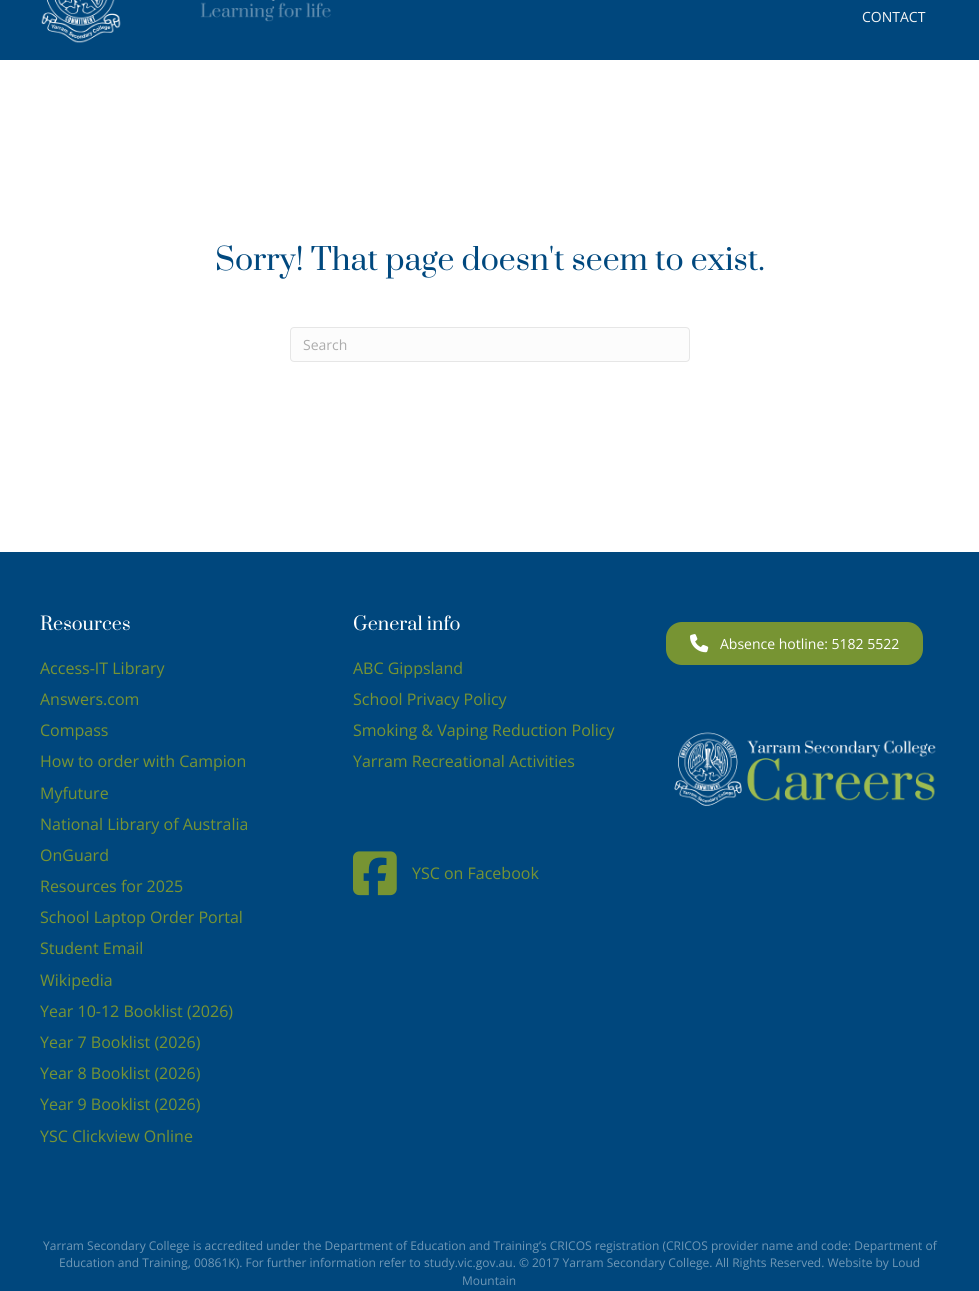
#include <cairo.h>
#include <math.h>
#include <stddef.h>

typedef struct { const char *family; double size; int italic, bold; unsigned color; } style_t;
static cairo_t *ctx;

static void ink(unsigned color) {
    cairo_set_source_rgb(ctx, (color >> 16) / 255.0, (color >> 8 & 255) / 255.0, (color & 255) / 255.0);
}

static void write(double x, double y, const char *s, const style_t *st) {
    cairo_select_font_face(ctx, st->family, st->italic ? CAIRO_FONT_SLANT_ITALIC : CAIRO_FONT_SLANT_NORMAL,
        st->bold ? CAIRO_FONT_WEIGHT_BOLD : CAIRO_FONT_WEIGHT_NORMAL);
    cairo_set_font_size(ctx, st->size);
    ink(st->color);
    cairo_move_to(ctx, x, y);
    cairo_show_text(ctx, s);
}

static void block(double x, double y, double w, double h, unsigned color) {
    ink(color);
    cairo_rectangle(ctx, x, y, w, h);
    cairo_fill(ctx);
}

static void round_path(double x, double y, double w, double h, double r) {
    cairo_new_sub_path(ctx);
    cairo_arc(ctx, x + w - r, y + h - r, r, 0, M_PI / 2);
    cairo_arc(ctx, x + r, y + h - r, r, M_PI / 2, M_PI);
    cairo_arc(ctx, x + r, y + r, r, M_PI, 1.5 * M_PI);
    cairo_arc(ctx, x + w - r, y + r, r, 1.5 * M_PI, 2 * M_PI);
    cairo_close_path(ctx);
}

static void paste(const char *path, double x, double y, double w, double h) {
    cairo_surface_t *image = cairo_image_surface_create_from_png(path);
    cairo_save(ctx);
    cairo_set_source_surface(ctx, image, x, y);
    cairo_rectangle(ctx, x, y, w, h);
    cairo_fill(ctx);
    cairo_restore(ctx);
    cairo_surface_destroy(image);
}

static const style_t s1 = {"Open Sans", 14, 0, 0, 0xf5f5f5};
static const style_t s2 = {"Prata", 30, 0, 0, 0x00487e};
static const style_t s3 = {"Open Sans", 14, 0, 0, 0xacacac};
static const style_t s4 = {"Prata", 18, 0, 0, 0xffffff};
static const style_t s5 = {"Open Sans", 16, 0, 0, 0x779433};
static const style_t s6 = {"Open Sans", 14, 0, 0, 0xffffff};
static const style_t s7 = {"Open Sans", 12, 0, 0, 0x7098b6};

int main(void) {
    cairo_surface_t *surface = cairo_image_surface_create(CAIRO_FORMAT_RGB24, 979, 1291);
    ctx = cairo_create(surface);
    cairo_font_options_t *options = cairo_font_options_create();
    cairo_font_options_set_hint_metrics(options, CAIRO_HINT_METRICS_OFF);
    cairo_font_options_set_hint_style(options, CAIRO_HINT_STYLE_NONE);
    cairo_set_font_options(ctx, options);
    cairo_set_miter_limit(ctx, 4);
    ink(0xffffff);
    cairo_paint(ctx);
    block(0, 0, 979, 60, 0x00477d);
    paste("pic1.png", 41, 0, 290, 43);
    write(862, 22, "CONTACT", &s1);
    write(215, 270, "Sorry! That page doesn't seem to exist.", &s2);
    ink(0xfcfcfc);
    round_path(290.5, 327.5, 399, 34, 3.5);
    cairo_fill_preserve(ctx);
    ink(0xe6e6e6);
    cairo_set_line_width(ctx, 1);
    cairo_stroke(ctx);
    write(303, 350, "Search", &s3);
    block(0, 552, 979, 739, 0x00477d);
    write(40, 630, "Resources", &s4);
    write(40, 674, "Access-IT Library", &s5);
    write(40, 705, "Answers.com", &s5);
    write(40, 736, "Compass", &s5);
    write(40, 767, "How to order with Campion", &s5);
    write(40, 799, "Myfuture", &s5);
    write(40, 830, "National Library of Australia", &s5);
    write(40, 861, "OnGuard", &s5);
    write(40, 892, "Resources for 2025", &s5);
    write(40, 923, "School Laptop Order Portal", &s5);
    write(40, 954, "Student Email", &s5);
    write(40, 986, "Wikipedia", &s5);
    write(40, 1017, "Year 10-12 Booklist (2026)", &s5);
    write(40, 1048, "Year 7 Booklist (2026)", &s5);
    write(40, 1079, "Year 8 Booklist (2026)", &s5);
    write(40, 1110, "Year 9 Booklist (2026)", &s5);
    write(40, 1142, "YSC Clickview Online", &s5);
    write(353, 630, "General info", &s4);
    write(353, 674, "ABC Gippsland", &s5);
    write(353, 705, "School Privacy Policy", &s5);
    write(353, 736, "Smoking & Vaping Reduction Policy", &s5);
    write(353, 767, "Yarram Recreational Activities", &s5);
    paste("pic2.png", 353, 851, 44, 45);
    write(412, 879, "YSC on Facebook", &s5);
    round_path(666, 622, 257, 43, 16);
    cairo_fill(ctx);
    paste("pic3.png", 690, 634, 19, 19);
    write(720, 649, "Absence hotline: 5182 5522", &s6);
    paste("pic4.png", 674, 732, 262, 74);
    write(43, 1250, "Yarram Secondary College is accredited under the Department of Education and Training’s CRICOS registration (CRICOS provider name and code: Department of", &s7);
    write(59, 1267, "Education and Training, 00861K). For further information refer to study.vic.gov.au. © 2017 Yarram Secondary College. All Rights Reserved. Website by Loud", &s7);
    write(462, 1285, "Mountain", &s7);
    cairo_surface_write_to_png(surface, "screenshot.png");
    cairo_font_options_destroy(options);
    cairo_destroy(ctx);
    cairo_surface_destroy(surface);
    return 0;
}
